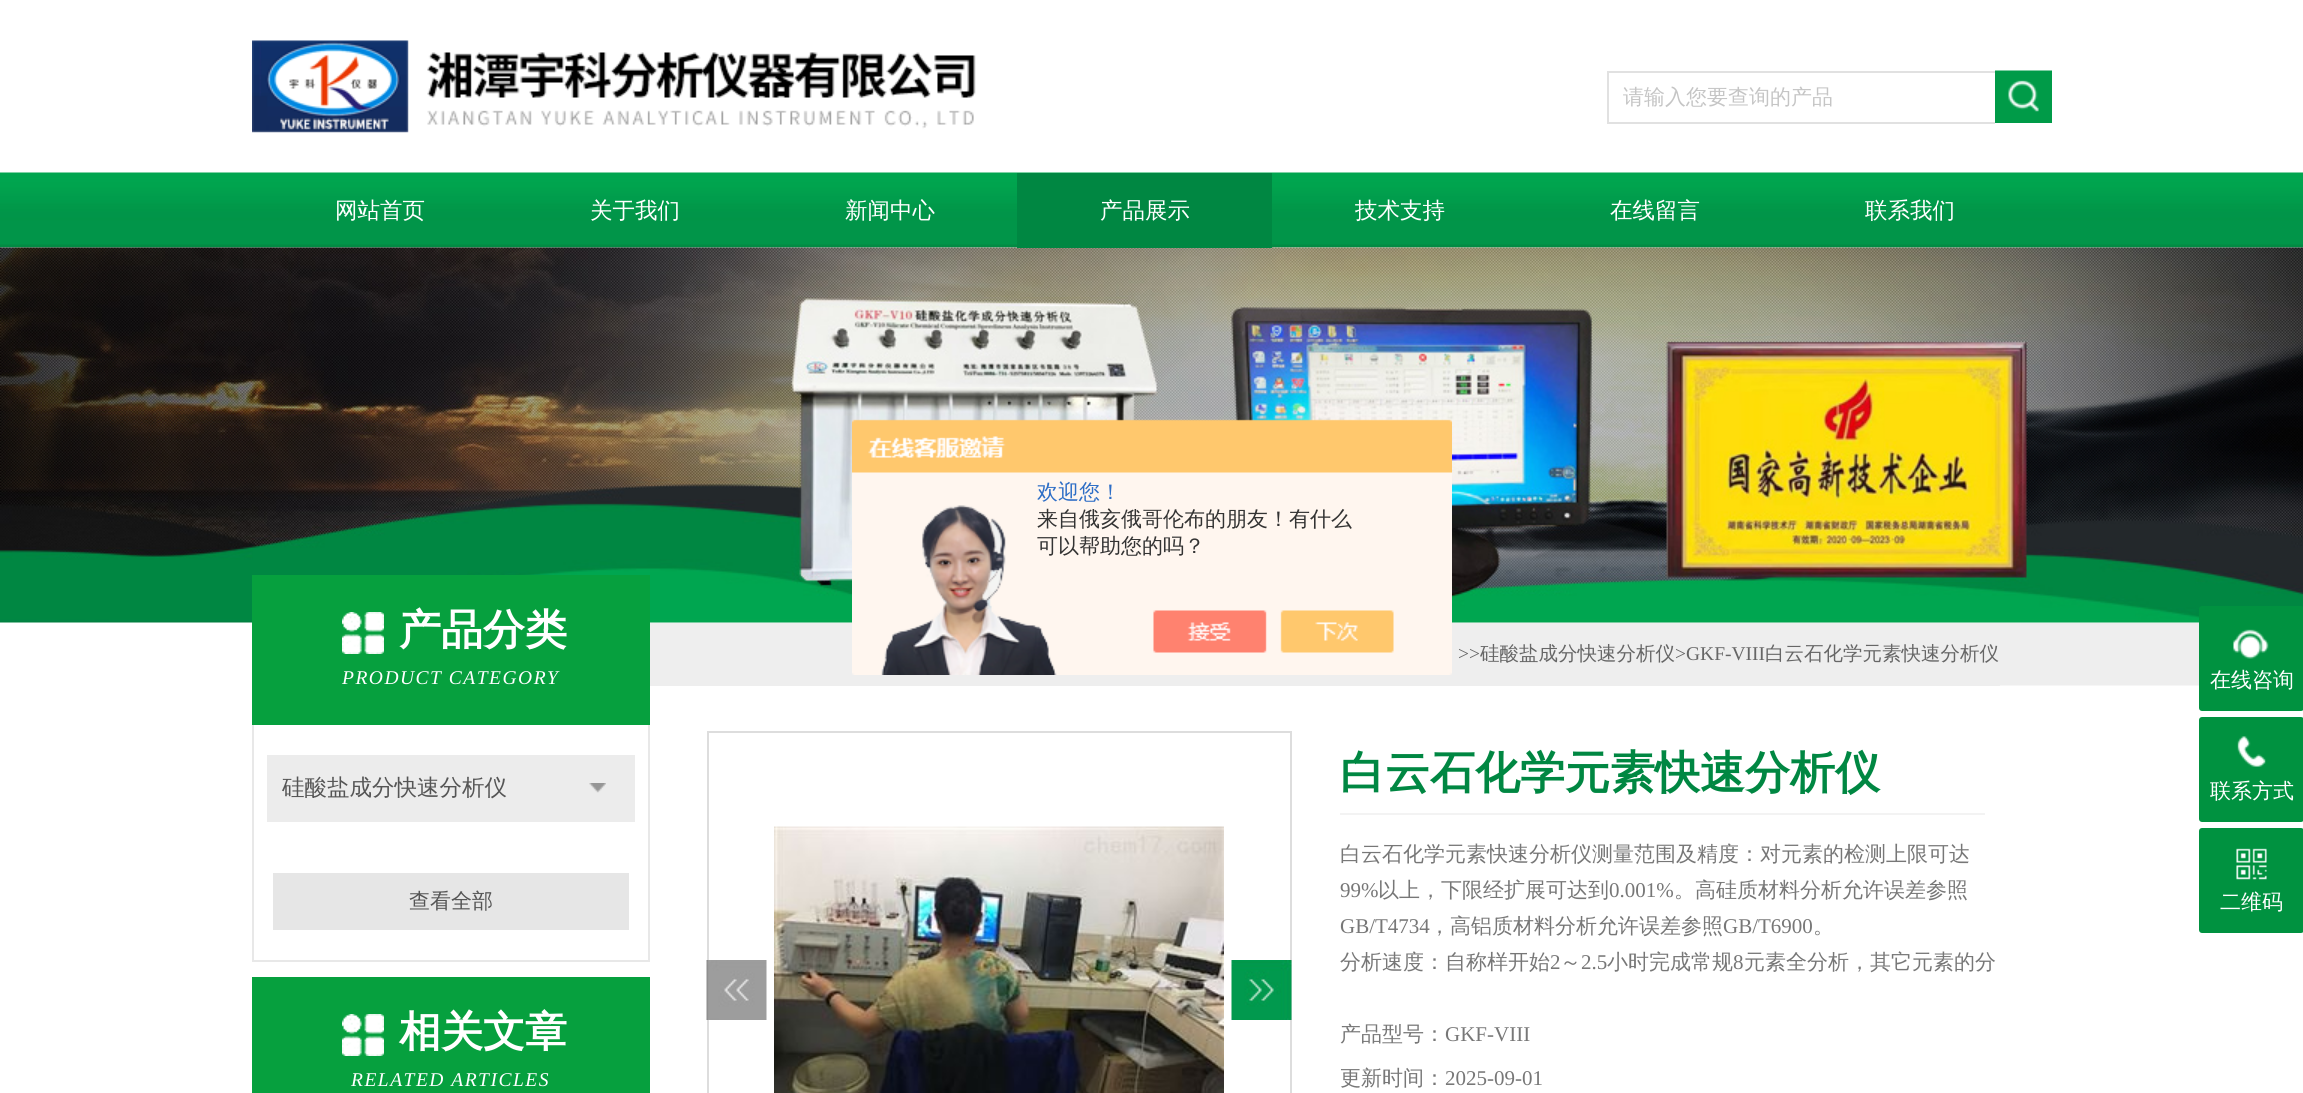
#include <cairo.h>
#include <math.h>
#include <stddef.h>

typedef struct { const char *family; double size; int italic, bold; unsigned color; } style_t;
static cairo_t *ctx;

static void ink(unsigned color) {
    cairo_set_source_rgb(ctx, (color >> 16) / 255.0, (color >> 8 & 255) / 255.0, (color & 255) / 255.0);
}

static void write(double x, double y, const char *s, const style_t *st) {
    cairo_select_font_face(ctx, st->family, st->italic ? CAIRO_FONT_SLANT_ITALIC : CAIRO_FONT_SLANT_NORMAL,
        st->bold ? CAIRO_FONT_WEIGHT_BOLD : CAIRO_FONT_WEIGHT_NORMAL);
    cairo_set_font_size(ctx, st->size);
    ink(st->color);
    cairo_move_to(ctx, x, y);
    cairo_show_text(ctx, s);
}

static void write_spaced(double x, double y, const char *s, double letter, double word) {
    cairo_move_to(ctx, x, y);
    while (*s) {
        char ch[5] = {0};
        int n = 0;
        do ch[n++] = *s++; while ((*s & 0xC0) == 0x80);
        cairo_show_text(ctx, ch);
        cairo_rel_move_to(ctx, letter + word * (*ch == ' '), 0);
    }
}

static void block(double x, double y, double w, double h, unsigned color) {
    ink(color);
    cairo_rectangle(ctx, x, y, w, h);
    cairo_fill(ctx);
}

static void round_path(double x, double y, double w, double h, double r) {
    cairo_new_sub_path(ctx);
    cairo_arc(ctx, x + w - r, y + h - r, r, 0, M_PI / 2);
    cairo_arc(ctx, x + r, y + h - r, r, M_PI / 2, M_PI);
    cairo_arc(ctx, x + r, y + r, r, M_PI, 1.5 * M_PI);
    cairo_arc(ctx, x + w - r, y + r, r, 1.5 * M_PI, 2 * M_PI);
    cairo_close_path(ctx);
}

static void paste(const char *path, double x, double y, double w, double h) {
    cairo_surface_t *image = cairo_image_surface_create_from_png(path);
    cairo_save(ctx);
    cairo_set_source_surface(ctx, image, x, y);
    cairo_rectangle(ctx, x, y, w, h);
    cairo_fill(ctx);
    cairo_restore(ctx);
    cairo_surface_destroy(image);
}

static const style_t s1 = {"WenQuanYi Zen Hei Medium", 21, 0, 0, 0xc5c5c5};
static const style_t s2 = {"WenQuanYi Zen Hei Medium", 22.5, 0, 0, 0xffffff};
static const style_t s3 = {"WenQuanYi Zen Hei Medium", 21, 0, 0, 0x2e6ec6};
static const style_t s4 = {"WenQuanYi Zen Hei Medium", 21, 0, 0, 0x333333};
static const style_t s5 = {"WenQuanYi Zen Hei", 42, 0, 1, 0xffffff};
static const style_t s6 = {"WenQuanYi Zen Hei Medium", 22.5, 0, 0, 0x555555};
static const style_t s7 = {"WenQuanYi Zen Hei Medium", 21, 0, 0, 0x555555};
static const style_t s8 = {"Liberation Serif", 19.5, 0, 0, 0x666666};
static const style_t s9 = {"WenQuanYi Zen Hei Medium", 19.5, 0, 0, 0x666666};
static const style_t s10 = {"WenQuanYi Zen Hei", 45, 0, 1, 0x008742};
static const style_t s11 = {"WenQuanYi Zen Hei Medium", 21, 0, 0, 0x777777};
static const style_t s12 = {"Liberation Serif", 21, 0, 0, 0x777777};
static const style_t s13 = {"WenQuanYi Zen Hei Medium", 21, 0, 0, 0xffffff};

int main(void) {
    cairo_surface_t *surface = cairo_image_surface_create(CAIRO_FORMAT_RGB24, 2303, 1093);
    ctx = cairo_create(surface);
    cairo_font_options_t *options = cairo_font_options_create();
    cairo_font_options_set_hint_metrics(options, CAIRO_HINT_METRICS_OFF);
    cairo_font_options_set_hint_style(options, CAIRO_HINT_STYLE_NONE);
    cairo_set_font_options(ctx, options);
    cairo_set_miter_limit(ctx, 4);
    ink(0xffffff);
    cairo_paint(ctx);
    paste("pic1.png", 650, 622, 1549, 64);
    paste("pic2.png", 252, 40, 724, 93);
    block(1607, 71, 388, 2, 0xe1e1e1);
    block(1607, 122, 388, 2, 0xe1e1e1);
    block(1607, 71, 2, 52, 0xe1e1e1);
    write(1623, 104, "请输入您要查询的产品", &s1);
    paste("pic3.png", 1995, 70, 57, 53);
    paste("pic4.png", 0, 172, 2303, 76);
    write(335, 218, "网站首页", &s2);
    write(590, 218, "关于我们", &s2);
    write(845, 218, "新闻中心", &s2);
    paste("pic5.png", 0, 247, 2303, 376);
    block(1017, 173, 255, 75, 0x008742);
    write(1100, 218, "产品展示", &s2);
    write(1355, 218, "技术支持", &s2);
    write(1610, 218, "在线留言", &s2);
    write(1865, 218, "联系我们", &s2);
    block(650, 623, 1350, 63, 0xeeeeee);
    paste("pic6.png", 852, 419, 600, 256);
    write(1037, 499, "欢迎您！", &s3);
    write(1037, 526, "来自俄亥俄哥伦布的朋友！有什么", &s4);
    write(1037, 553, "可以帮助您的吗？", &s4);
    block(252, 575, 398, 150, 0x06a03e);
    paste("pic7.png", 342, 612, 42, 42);
    write(399, 644, "产品分类", &s5);
    cairo_select_font_face(ctx, "Liberation Serif", CAIRO_FONT_SLANT_ITALIC, CAIRO_FONT_WEIGHT_NORMAL);
    cairo_set_font_size(ctx, 19.5);
    write_spaced(342, 684, "PRODUCT CATEGORY", 1.5, 0);
    block(648, 725, 2, 237, 0xe8e8e8);
    block(252, 960, 398, 2, 0xe8e8e8);
    block(252, 725, 2, 237, 0xe8e8e8);
    block(267, 755, 368, 67, 0xececec);
    write(282, 795, "硅酸盐成分快速分析仪", &s6);
    paste("pic8.png", 589, 783, 17, 10);
    block(273, 873, 356, 57, 0xe6e6e6);
    write(409, 908, "查看全部", &s7);
    block(252, 977, 398, 116, 0x06a03e);
    paste("pic7.png", 342, 1014, 42, 42);
    write(399, 1046, "相关文章", &s5);
    cairo_select_font_face(ctx, "Liberation Serif", CAIRO_FONT_SLANT_ITALIC, CAIRO_FONT_WEIGHT_NORMAL);
    cairo_set_font_size(ctx, 19.5);
    write_spaced(351, 1086, "RELATED ARTICLES", 1.5, 0);
    write(1458, 660, ">>", &s8);
    write(1480, 660, "硅酸盐成分快速分析仪", &s9);
    write(1675, 660, ">GKF-VIII", &s8);
    write(1765, 660, "白云石化学元素快速分析仪", &s9);
    cairo_rectangle(ctx, 708, 732, 583, 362);
    ink(0xdddddd);
    cairo_stroke(ctx);
    paste("pic9.png", 774, 826, 450, 267);
    paste("pic10.png", 706, 960, 61, 60);
    paste("pic11.png", 1231, 960, 61, 60);
    block(1340, 813, 645, 2, 0xf3f3f3);
    write(1340, 788, "白云石化学元素快速分析仪", &s10);
    write(1340, 861, "白云石化学元素快速分析仪测量范围及精度：对元素的检测上限可达", &s11);
    write(1340, 897, "99%", &s12);
    write(1378, 897, "以上，下限经扩展可达到", &s11);
    write(1609, 897, "0.001%", &s12);
    write(1674, 897, "。高硅质材料分析允许误差参照", &s11);
    write(1340, 933, "GB/T4734", &s12);
    write(1429, 933, "，高铝质材料分析允许误差参照", &s11);
    write(1723, 933, "GB/T6900", &s12);
    write(1813, 933, "。", &s11);
    write(1340, 969, "分析速度：自称样开始", &s11);
    write(1550, 969, "2", &s12);
    write(1560, 969, "～", &s11);
    write(1581, 969, "2.5", &s12);
    write(1607, 969, "小时完成常规", &s11);
    write(1733, 969, "8", &s12);
    write(1744, 969, "元素全分析，其它元素的分", &s11);
    write(1340, 1041, "产品型号：", &s11);
    write(1445, 1041, "GKF-VIII", &s12);
    write(1340, 1085, "更新时间：", &s11);
    write(1445, 1085, "2025-09-01", &s12);
    ink(0x009240);
    round_path(2199, 606, 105, 105, 3);
    cairo_fill(ctx);
    paste("pic12.png", 2233, 629, 36, 30);
    write(2210, 687, "在线咨询", &s13);
    ink(0x009240);
    round_path(2199, 717, 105, 105, 3);
    cairo_fill(ctx);
    paste("pic13.png", 2237, 736, 29, 31);
    write(2210, 798, "联系方式", &s13);
    ink(0x009240);
    round_path(2199, 828, 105, 105, 3);
    cairo_fill(ctx);
    paste("pic14.png", 2236, 848, 31, 32);
    write(2220, 909, "二维码", &s13);
    cairo_surface_write_to_png(surface, "screenshot.png");
    cairo_font_options_destroy(options);
    cairo_destroy(ctx);
    cairo_surface_destroy(surface);
    return 0;
}
